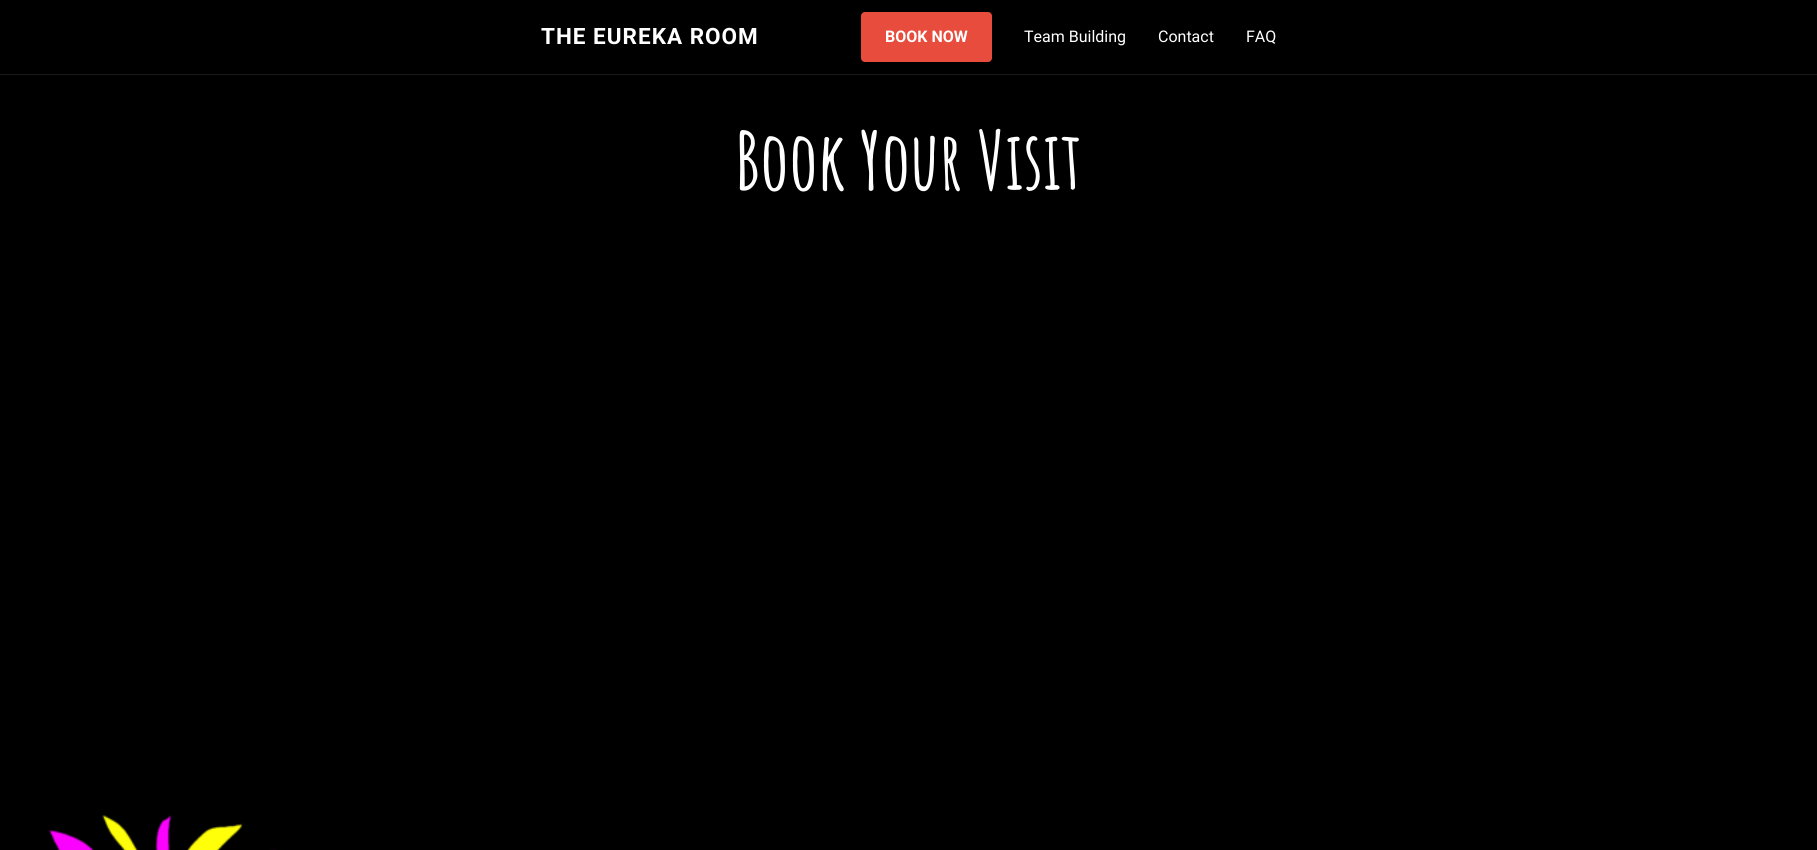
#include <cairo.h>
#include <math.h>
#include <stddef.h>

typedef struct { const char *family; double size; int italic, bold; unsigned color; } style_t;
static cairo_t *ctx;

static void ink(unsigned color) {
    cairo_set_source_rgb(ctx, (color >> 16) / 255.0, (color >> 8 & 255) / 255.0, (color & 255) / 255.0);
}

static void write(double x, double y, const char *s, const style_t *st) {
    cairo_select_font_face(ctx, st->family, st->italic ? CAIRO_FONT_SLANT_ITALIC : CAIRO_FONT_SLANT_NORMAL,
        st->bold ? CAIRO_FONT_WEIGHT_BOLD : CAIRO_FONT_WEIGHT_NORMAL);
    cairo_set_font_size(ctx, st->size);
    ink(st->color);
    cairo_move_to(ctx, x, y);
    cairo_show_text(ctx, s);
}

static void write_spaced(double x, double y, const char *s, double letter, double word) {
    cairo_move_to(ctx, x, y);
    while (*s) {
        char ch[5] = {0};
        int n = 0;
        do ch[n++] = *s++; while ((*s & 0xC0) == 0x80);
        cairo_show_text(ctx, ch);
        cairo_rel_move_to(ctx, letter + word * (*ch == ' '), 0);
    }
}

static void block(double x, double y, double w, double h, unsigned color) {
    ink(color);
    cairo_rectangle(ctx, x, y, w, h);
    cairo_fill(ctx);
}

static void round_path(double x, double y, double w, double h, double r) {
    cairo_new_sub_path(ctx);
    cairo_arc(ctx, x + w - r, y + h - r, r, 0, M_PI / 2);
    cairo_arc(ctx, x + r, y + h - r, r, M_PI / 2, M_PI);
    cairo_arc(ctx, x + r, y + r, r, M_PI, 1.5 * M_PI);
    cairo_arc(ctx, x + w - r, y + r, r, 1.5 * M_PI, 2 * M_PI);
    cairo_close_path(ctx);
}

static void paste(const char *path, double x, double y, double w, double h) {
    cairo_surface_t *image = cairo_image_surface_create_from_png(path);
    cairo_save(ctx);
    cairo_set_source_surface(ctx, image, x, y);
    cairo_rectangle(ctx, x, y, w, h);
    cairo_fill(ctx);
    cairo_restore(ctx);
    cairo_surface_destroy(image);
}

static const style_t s1 = {"Roboto", 16, 0, 1, 0xffffff};
static const style_t s2 = {"Roboto", 16, 0, 0, 0xffffff};
static const style_t s3 = {"Amatic SC", 80, 0, 1, 0xffffff};

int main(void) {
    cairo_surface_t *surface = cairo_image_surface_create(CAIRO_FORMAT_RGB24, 1817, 850);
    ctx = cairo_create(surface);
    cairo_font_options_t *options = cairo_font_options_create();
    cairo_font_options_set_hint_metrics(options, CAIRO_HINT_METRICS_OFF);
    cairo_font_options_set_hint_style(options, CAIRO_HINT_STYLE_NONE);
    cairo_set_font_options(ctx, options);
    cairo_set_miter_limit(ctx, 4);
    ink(0x000000);
    cairo_paint(ctx);
    block(0, 74, 1817, 1, 0x1a1a1a);
    cairo_select_font_face(ctx, "Roboto", CAIRO_FONT_SLANT_NORMAL, CAIRO_FONT_WEIGHT_BOLD);
    cairo_set_font_size(ctx, 22.5);
    ink(0xffffff);
    write_spaced(541, 44, "THE EUREKA ROOM", 1, 0);
    ink(0xe74c3c);
    round_path(861, 12, 131, 50, 4);
    cairo_fill(ctx);
    write(885, 42, "BOOK NOW", &s1);
    write(1024, 42, "Team Building", &s2);
    write(1158, 42, "Contact", &s2);
    write(1246, 42, "FAQ", &s2);
    write(735, 190, "Book Your Visit", &s3);
    paste("pic1.png", 49, 815, 227, 35);
    cairo_surface_write_to_png(surface, "screenshot.png");
    cairo_font_options_destroy(options);
    cairo_destroy(ctx);
    cairo_surface_destroy(surface);
    return 0;
}
